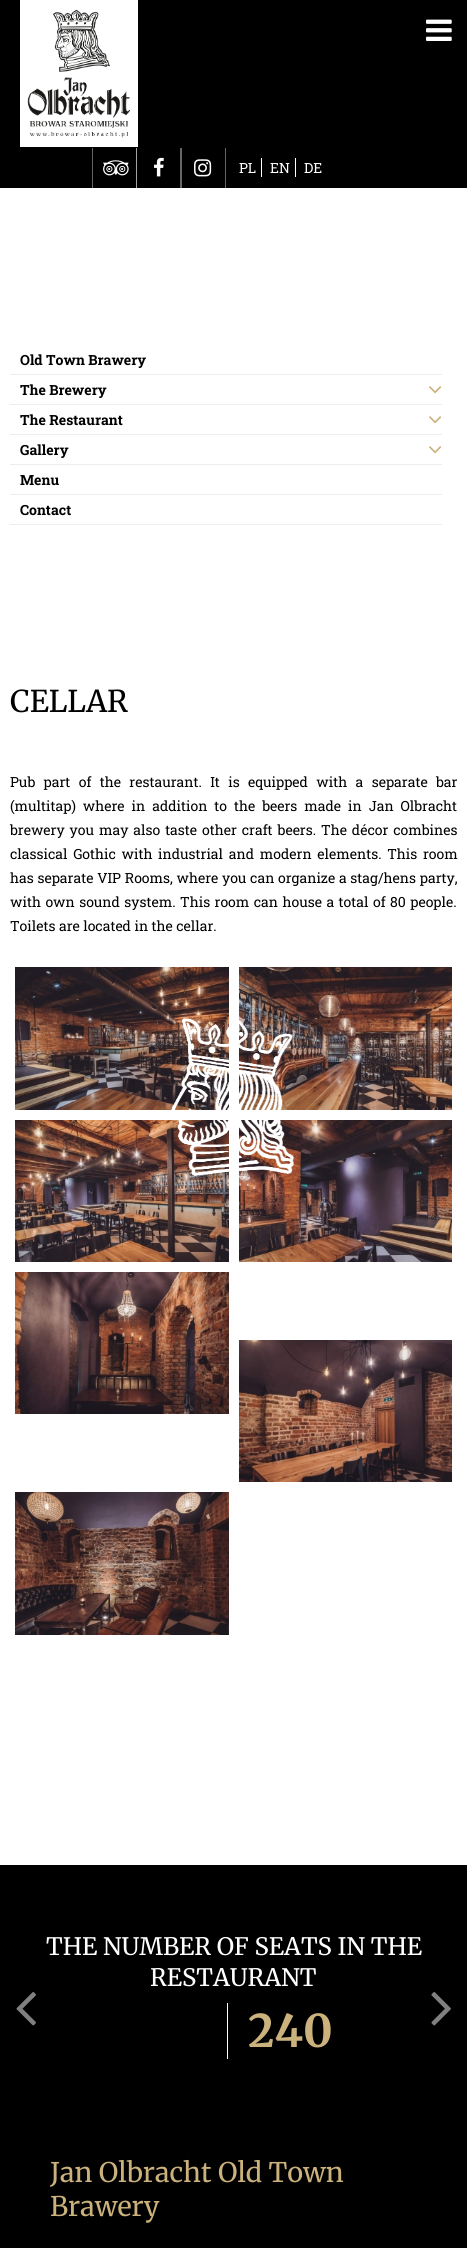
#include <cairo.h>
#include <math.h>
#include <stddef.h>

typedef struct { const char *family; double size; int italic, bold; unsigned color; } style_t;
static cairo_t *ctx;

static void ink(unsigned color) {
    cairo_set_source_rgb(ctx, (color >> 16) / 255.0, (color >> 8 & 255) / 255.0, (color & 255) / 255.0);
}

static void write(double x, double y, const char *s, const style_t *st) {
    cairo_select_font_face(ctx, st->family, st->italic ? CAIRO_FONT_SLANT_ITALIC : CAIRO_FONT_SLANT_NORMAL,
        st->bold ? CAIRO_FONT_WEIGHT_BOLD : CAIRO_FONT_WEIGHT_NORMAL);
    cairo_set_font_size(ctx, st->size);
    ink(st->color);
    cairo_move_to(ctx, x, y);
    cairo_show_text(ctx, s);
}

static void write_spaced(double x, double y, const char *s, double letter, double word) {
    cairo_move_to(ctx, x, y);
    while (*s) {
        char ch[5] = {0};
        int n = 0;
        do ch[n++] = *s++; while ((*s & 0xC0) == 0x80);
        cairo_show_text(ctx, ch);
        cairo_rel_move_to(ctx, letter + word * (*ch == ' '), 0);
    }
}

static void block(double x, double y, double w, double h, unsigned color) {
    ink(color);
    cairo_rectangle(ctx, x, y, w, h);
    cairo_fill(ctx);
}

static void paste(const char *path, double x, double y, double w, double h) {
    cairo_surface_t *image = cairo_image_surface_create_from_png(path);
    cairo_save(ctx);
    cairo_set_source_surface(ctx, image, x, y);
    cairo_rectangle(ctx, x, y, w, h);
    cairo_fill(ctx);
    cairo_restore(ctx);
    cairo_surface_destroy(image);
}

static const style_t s1 = {"Roboto Slab", 14, 0, 0, 0xffffff};
static const style_t s2 = {"Roboto Slab", 14, 0, 1, 0x000000};
static const style_t s3 = {"Merriweather", 30, 0, 0, 0x000000};
static const style_t s4 = {"Roboto Slab", 14, 0, 0, 0x000000};
static const style_t s5 = {"Merriweather", 24, 0, 0, 0xffffff};
static const style_t s6 = {"Merriweather", 45, 0, 1, 0xcbb27c};
static const style_t s7 = {"Merriweather", 27, 0, 0, 0xcbb27c};

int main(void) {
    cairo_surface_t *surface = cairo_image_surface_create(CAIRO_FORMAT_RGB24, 467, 2248);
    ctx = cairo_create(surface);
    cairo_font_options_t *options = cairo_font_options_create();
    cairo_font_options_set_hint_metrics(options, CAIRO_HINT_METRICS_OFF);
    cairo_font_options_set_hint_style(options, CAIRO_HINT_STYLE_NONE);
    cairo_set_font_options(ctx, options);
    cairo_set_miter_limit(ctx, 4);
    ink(0x000000);
    cairo_paint(ctx);
    paste("pic1.png", 20, 0, 118, 147);
    paste("pic2.png", 426, 19, 26, 22);
    block(92, 148, 1, 40, 0x666666);
    paste("pic3.png", 103, 160, 26, 16);
    block(180, 148, 2, 40, 0x666666);
    block(136, 148, 1, 40, 0xa3a3a3);
    paste("pic4.png", 154, 157, 10, 20);
    block(225, 148, 1, 40, 0x666666);
    paste("pic5.png", 194, 159, 18, 18);
    block(261, 158, 1, 19, 0xffffff);
    write(239, 173, "PL", &s1);
    block(295, 158, 1, 19, 0xffffff);
    write(270, 173, "EN", &s1);
    write(304, 173, "DE", &s1);
    block(0, 188, 467, 1677, 0xffffff);
    block(10, 374, 432, 1, 0xeeeeee);
    write(20, 365, "Old Town Brawery", &s2);
    block(10, 404, 432, 1, 0xeeeeee);
    write(20, 395, "The Brewery", &s2);
    paste("pic6.png", 429, 386, 13, 8);
    block(10, 434, 432, 1, 0xeeeeee);
    write(20, 425, "The Restaurant", &s2);
    paste("pic6.png", 429, 416, 13, 8);
    block(10, 464, 432, 1, 0xeeeeee);
    write(20, 455, "Gallery", &s2);
    paste("pic6.png", 429, 446, 13, 8);
    block(10, 494, 432, 1, 0xeeeeee);
    write(20, 485, "Menu", &s2);
    block(10, 524, 432, 1, 0xeeeeee);
    write(20, 515, "Contact", &s2);
    write(10, 712, "CELLAR", &s3);
    cairo_select_font_face(ctx, "Roboto Slab", CAIRO_FONT_SLANT_NORMAL, CAIRO_FONT_WEIGHT_NORMAL);
    cairo_set_font_size(ctx, 14);
    write_spaced(10, 787, "Pub part of the restaurant. It is equipped with a separate bar", 0, 4.9);
    write_spaced(10, 811, "(multitap) where in addition to the beers made in Jan Olbracht", 0, 3.5);
    write_spaced(10, 835, "brewery you may also taste other craft beers. The décor combines", 0, 1.5);
    write_spaced(10, 859, "classical Gothic with industrial and modern elements. This room", 0, 2.25);
    write_spaced(10, 883, "has separate VIP Rooms, where you can organize a stag/hens party,", 0, 0.25);
    write_spaced(10, 907, "with own sound system. This room can house a total of 80 people.", 0, 1);
    write(10, 931, "Toilets are located in the cellar.", &s4);
    paste("pic7.png", 15, 967, 214, 143);
    paste("pic8.png", 239, 967, 213, 143);
    paste("pic9.png", 15, 1120, 214, 142);
    paste("pic10.png", 239, 1120, 213, 142);
    paste("pic11.png", 15, 1272, 214, 142);
    paste("pic12.png", 239, 1340, 213, 142);
    paste("pic13.png", 15, 1492, 214, 143);
    write(46, 1955, "THE NUMBER OF SEATS IN THE", &s5);
    write(150, 1986, "RESTAURANT", &s5);
    block(227, 2003, 1, 56, 0xffffff);
    write(248, 2047, "240", &s6);
    paste("pic14.png", 16, 1992, 20, 34);
    paste("pic15.png", 431, 1992, 20, 34);
    write(50, 2182, "Jan Olbracht Old Town", &s7);
    write(50, 2216, "Brawery", &s7);
    paste("pic16.png", 171, 1018, 123, 158);
    cairo_surface_write_to_png(surface, "screenshot.png");
    cairo_font_options_destroy(options);
    cairo_destroy(ctx);
    cairo_surface_destroy(surface);
    return 0;
}
